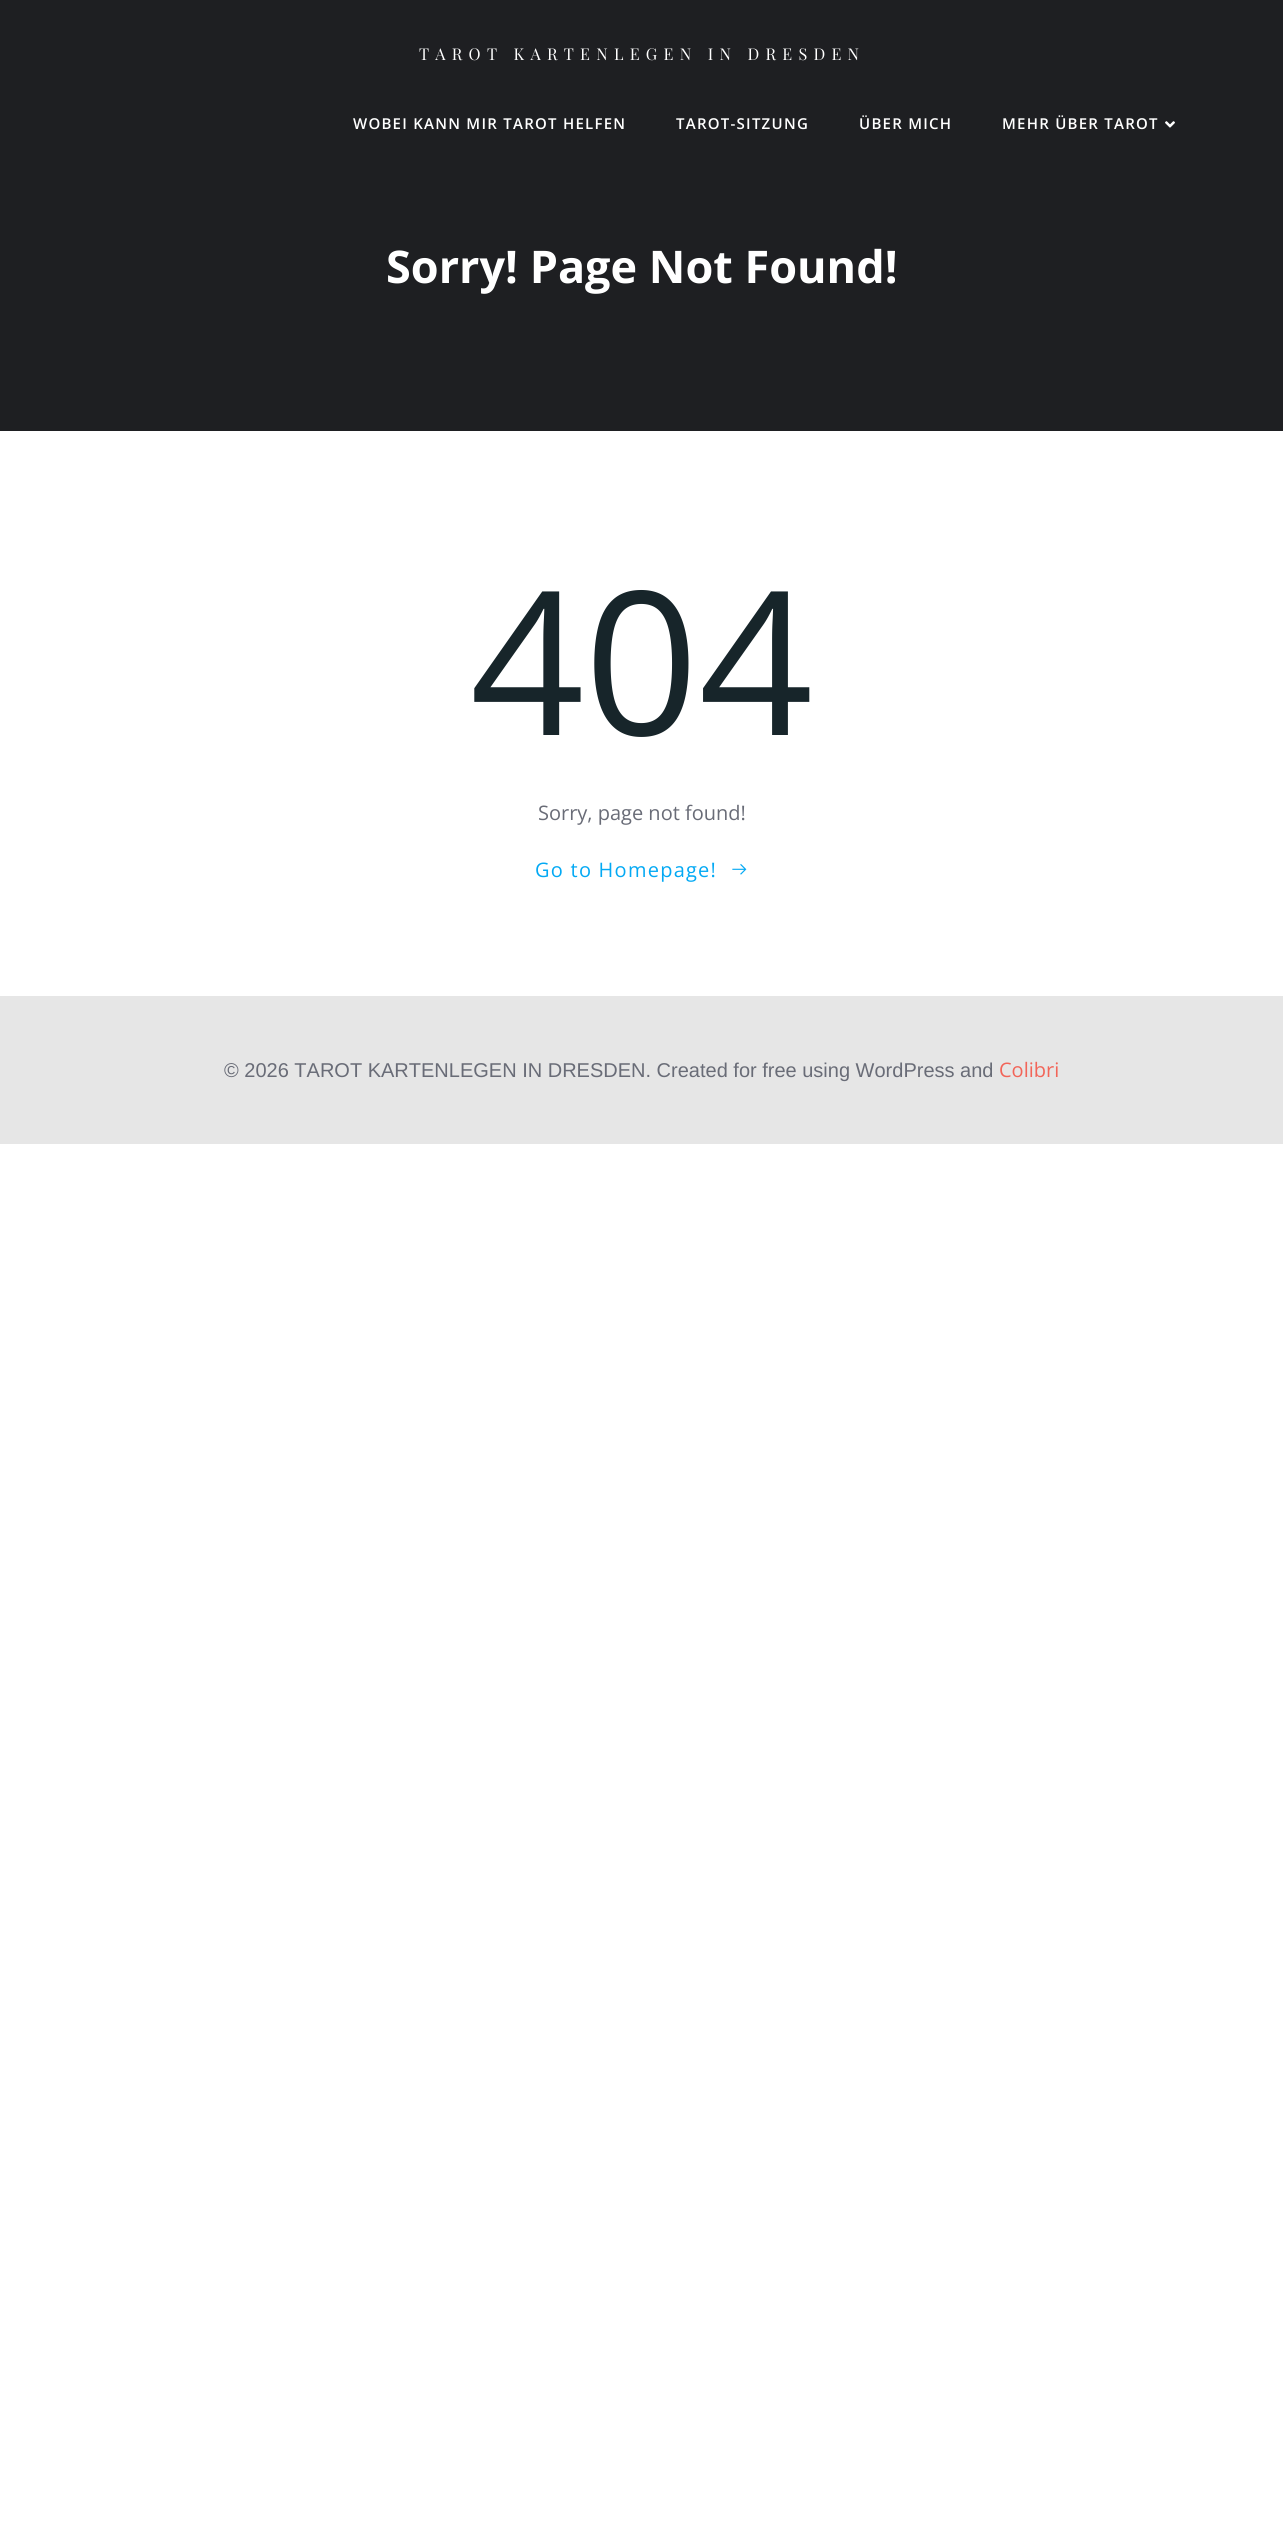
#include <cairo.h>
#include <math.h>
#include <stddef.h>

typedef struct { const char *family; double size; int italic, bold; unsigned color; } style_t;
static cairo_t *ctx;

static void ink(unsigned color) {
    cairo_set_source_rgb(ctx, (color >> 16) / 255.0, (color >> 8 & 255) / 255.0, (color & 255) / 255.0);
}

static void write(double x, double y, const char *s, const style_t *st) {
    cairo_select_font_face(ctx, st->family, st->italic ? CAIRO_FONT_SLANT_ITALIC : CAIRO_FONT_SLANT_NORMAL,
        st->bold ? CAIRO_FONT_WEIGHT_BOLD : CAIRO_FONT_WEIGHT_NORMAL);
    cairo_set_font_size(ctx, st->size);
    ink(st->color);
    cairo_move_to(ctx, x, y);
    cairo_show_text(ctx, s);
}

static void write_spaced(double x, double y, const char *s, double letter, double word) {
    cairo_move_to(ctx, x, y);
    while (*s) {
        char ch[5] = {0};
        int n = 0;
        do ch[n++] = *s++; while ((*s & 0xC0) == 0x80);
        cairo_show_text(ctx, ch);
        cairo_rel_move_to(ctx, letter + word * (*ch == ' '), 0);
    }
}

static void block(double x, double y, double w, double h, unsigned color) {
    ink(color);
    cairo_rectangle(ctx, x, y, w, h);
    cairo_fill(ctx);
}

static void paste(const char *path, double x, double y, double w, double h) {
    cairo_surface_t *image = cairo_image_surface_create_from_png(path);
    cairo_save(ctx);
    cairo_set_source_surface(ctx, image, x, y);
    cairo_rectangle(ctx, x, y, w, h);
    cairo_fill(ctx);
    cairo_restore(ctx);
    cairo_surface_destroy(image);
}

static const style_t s1 = {"Open Sans", 45, 0, 1, 0xffffff};
static const style_t s2 = {"Open Sans", 200, 0, 0, 0x17252a};
static const style_t s3 = {"Open Sans", 20, 0, 0, 0x696c77};
static const style_t s4 = {"Liberation Sans", 20, 0, 0, 0x696c77};
static const style_t s5 = {"Open Sans", 20, 0, 0, 0xf26559};

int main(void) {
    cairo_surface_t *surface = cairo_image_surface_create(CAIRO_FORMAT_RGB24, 1283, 2522);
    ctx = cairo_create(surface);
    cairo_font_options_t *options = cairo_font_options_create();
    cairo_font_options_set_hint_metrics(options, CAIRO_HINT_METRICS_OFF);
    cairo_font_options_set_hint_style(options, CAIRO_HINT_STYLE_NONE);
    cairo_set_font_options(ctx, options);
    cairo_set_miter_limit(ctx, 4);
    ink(0xffffff);
    cairo_paint(ctx);
    block(0, 0, 1283, 431, 0x1e1f22);
    cairo_select_font_face(ctx, "Playfair Display", CAIRO_FONT_SLANT_NORMAL, CAIRO_FONT_WEIGHT_NORMAL);
    cairo_set_font_size(ctx, 16.25);
    ink(0xffffff);
    write_spaced(419, 60, "TAROT KARTENLEGEN IN DRESDEN", 6.25, 0);
    cairo_select_font_face(ctx, "Open Sans SemiBold", CAIRO_FONT_SLANT_NORMAL, CAIRO_FONT_WEIGHT_NORMAL);
    cairo_set_font_size(ctx, 15);
    write_spaced(353, 129, "WOBEI KANN MIR TAROT HELFEN", 1.25, 0);
    write_spaced(676, 129, "TAROT-SITZUNG", 1.25, 0);
    write_spaced(859, 129, "ÜBER MICH", 1.25, 0);
    write_spaced(1002, 129, "MEHR ÜBER TAROT", 1.25, 0);
    paste("pic1.png", 1165, 121, 10, 7);
    write(386, 283, "Sorry! Page Not Found!", &s1);
    write(470, 735, "404", &s2);
    write(538, 820, "Sorry, page not found!", &s3);
    ink(0x03a9f4);
    write_spaced(535, 877, "Go to Homepage!", 1.25, 0);
    paste("pic2.png", 732, 864, 15, 11);
    block(0, 996, 1283, 148, 0xe6e6e6);
    write(224, 1077, "© 2026 TAROT KARTENLEGEN IN DRESDEN. Created for free using WordPress and", &s4);
    write(999, 1077, "Colibri", &s5);
    cairo_surface_write_to_png(surface, "screenshot.png");
    cairo_font_options_destroy(options);
    cairo_destroy(ctx);
    cairo_surface_destroy(surface);
    return 0;
}
